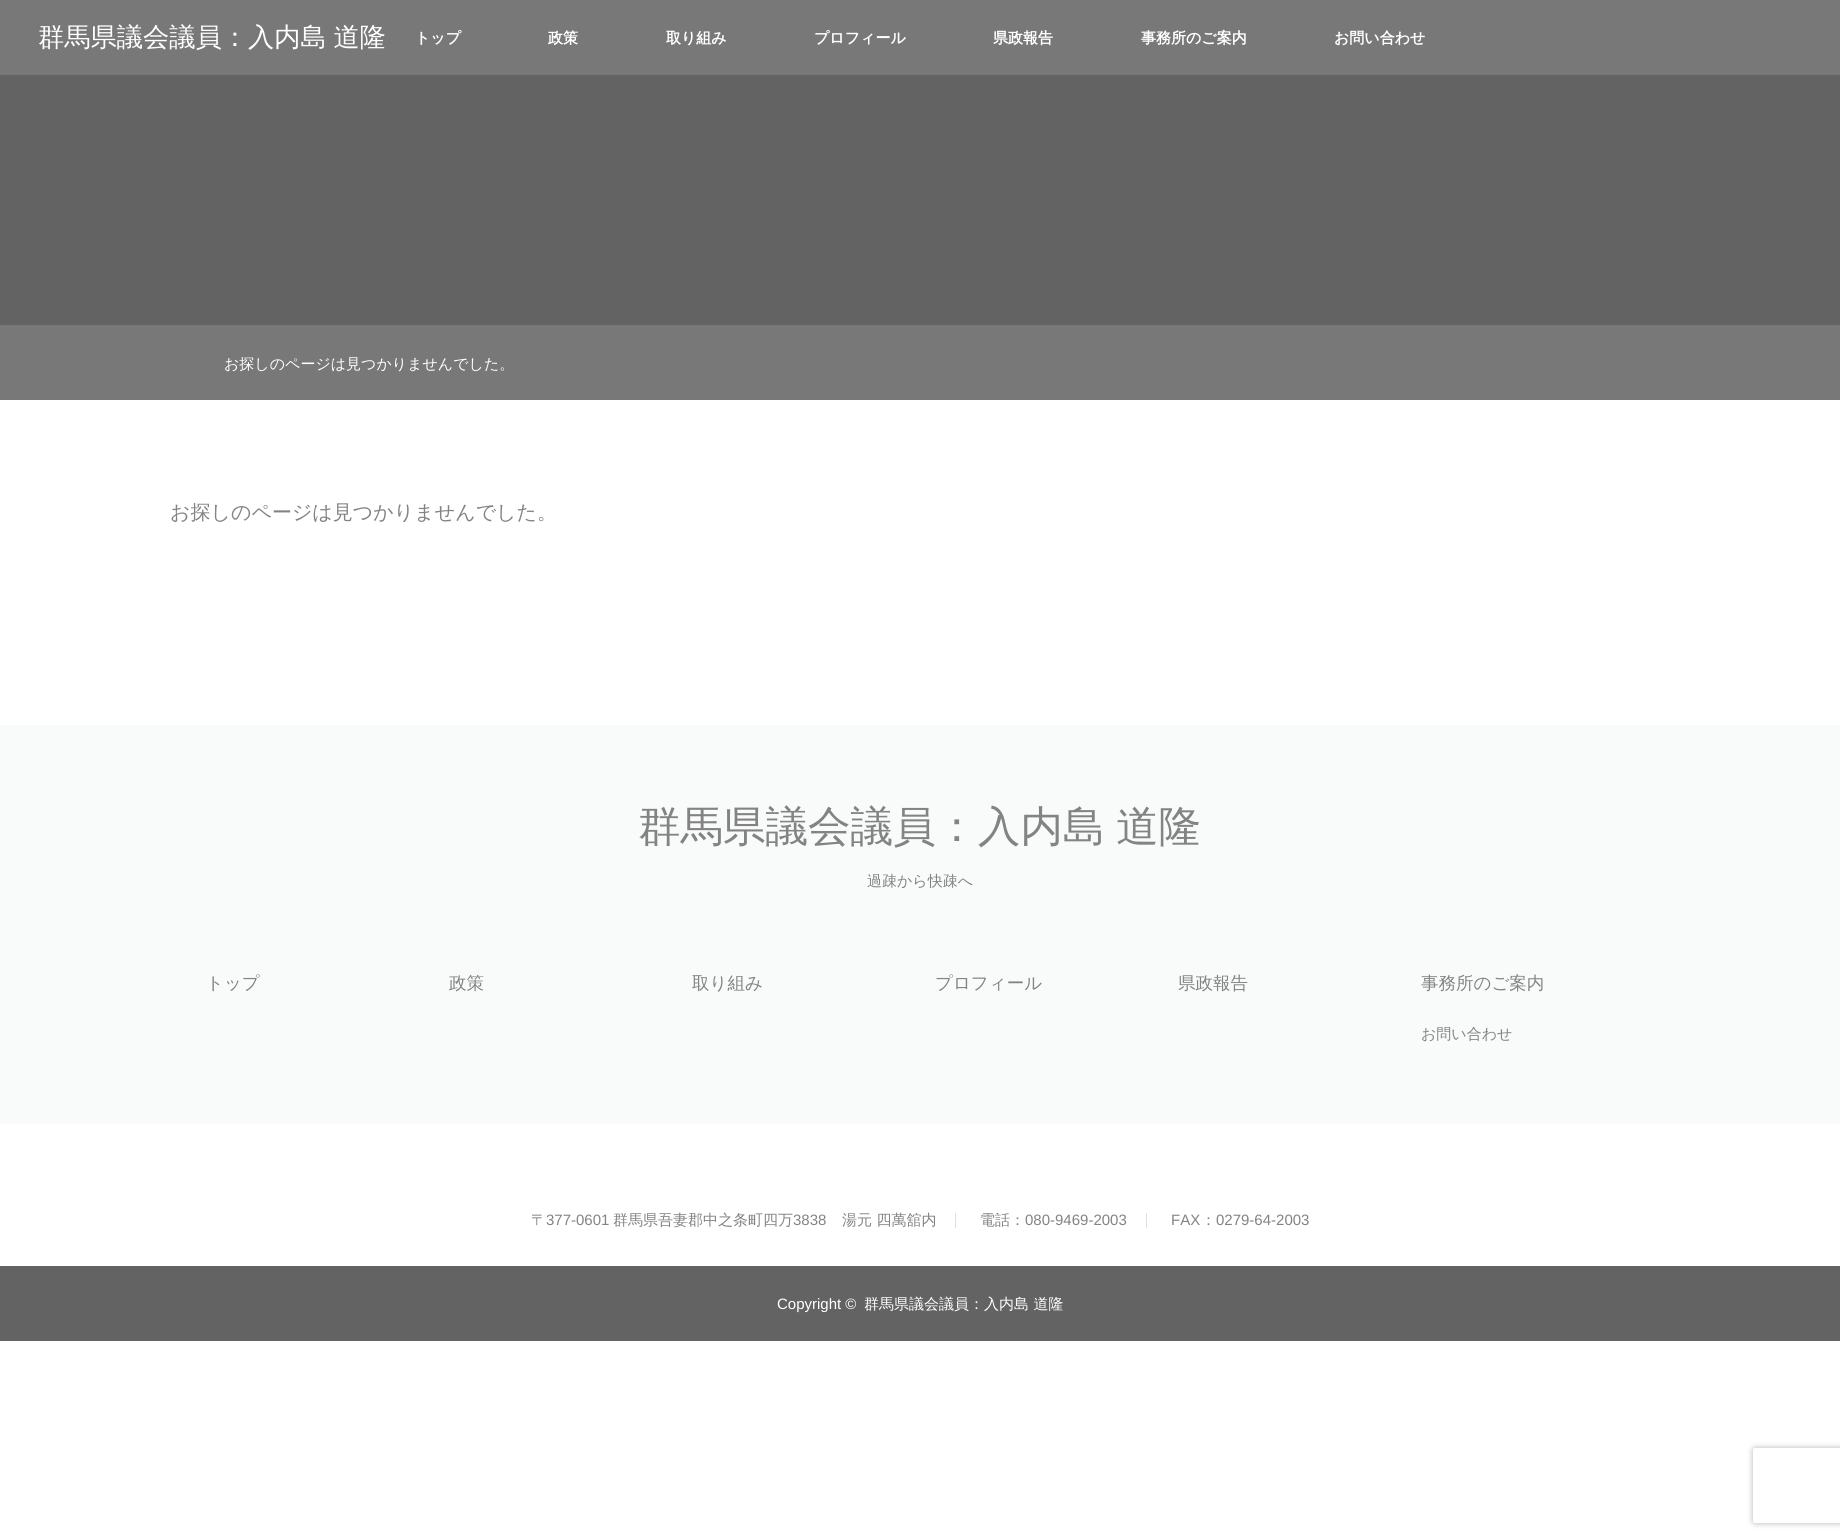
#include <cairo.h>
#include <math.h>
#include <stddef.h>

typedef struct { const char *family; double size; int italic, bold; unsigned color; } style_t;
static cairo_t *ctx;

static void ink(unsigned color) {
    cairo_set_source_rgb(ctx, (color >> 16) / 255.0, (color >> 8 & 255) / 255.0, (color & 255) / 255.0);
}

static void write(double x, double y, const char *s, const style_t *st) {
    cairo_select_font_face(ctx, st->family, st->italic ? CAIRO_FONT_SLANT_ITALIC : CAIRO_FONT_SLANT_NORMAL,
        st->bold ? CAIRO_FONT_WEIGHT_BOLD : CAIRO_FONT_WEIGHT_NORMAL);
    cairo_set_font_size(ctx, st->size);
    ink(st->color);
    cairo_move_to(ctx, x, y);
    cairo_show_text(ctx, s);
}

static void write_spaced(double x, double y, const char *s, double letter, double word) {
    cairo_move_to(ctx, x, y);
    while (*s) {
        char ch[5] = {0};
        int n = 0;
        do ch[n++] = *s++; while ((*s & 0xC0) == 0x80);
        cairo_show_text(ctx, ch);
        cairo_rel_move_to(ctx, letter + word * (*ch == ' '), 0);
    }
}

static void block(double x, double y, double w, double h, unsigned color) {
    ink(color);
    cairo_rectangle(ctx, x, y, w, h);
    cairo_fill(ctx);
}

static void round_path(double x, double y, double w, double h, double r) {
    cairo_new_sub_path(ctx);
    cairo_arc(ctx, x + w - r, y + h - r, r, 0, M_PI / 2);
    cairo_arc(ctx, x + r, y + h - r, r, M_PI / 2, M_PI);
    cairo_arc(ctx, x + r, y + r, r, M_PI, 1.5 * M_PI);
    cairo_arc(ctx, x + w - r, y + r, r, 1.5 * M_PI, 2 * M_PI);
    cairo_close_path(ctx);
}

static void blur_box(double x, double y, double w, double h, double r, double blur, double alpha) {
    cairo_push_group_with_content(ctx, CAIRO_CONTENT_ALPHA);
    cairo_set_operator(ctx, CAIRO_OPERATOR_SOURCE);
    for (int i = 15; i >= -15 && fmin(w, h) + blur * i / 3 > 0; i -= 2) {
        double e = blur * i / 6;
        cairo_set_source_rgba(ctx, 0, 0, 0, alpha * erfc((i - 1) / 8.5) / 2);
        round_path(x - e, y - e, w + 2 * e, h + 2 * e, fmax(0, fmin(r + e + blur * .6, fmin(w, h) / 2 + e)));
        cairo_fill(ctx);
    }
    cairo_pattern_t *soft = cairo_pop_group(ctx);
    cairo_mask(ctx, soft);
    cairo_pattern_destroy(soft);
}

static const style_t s1 = {"WenQuanYi Zen Hei", 15, 0, 1, 0xffffff};
static const style_t s2 = {"WenQuanYi Zen Hei Medium", 15, 0, 0, 0xffffff};
static const style_t s3 = {"WenQuanYi Zen Hei Medium", 20, 0, 0, 0x838383};
static const style_t s4 = {"WenQuanYi Zen Hei Medium", 15, 0, 0, 0x838383};
static const style_t s5 = {"WenQuanYi Zen Hei Medium", 17.5, 0, 0, 0x838383};
static const style_t s6 = {"Liberation Sans", 15, 0, 0, 0x838383};
static const style_t s7 = {"Liberation Sans", 15, 0, 0, 0xffffff};

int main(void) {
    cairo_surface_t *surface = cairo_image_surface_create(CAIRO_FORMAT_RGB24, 1840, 1540);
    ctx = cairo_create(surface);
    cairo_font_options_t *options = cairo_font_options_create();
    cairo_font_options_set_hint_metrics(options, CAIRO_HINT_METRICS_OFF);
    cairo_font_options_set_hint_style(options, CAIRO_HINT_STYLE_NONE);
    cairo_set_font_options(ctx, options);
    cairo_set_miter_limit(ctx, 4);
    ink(0xffffff);
    cairo_paint(ctx);
    block(0, 0, 1840, 75, 0x787878);
    cairo_select_font_face(ctx, "WenQuanYi Zen Hei Medium", CAIRO_FONT_SLANT_NORMAL, CAIRO_FONT_WEIGHT_NORMAL);
    cairo_set_font_size(ctx, 26.25);
    ink(0xffffff);
    write_spaced(38, 46, "群馬県議会議員：入内島 道隆", 0, -1);
    write(415, 43, "トップ", &s1);
    write(548, 43, "政策", &s1);
    write(666, 43, "取り組み", &s1);
    write(814, 43, "プロフィール", &s1);
    write(993, 43, "県政報告", &s1);
    write(1141, 43, "事務所のご案内", &s1);
    write(1334, 43, "お問い合わせ", &s1);
    block(0, 75, 1840, 250, 0x636363);
    block(0, 325, 1840, 75, 0x787878);
    write(224, 369, "お探しのページは見つかりませんでした。", &s2);
    write(170, 519, "お探しのページは見つかりませんでした。", &s3);
    block(0, 725, 1840, 399, 0xf9fafa);
    cairo_set_font_size(ctx, 42.5);
    ink(0x838383);
    write_spaced(638, 841, "群馬県議会議員：入内島 道隆", 0, -2);
    write(867, 886, "過疎から快疎へ", &s4);
    write(206, 989, "トップ", &s5);
    write(449, 989, "政策", &s5);
    write(692, 989, "取り組み", &s5);
    write(935, 989, "プロフィール", &s5);
    write(1178, 989, "県政報告", &s5);
    write(1421, 989, "事務所のご案内", &s5);
    write(1421, 1039, "お問い合わせ", &s4);
    block(955, 1213, 1, 15, 0xe0e0e0);
    write(531, 1225, "〒", &s4);
    write(546, 1225, "377-0601", &s6);
    write(613, 1225, "群馬県吾妻郡中之条町四万", &s4);
    write(793, 1225, "3838", &s6);
    write(842, 1225, "湯元 四萬舘内", &s4);
    block(1146, 1213, 1, 15, 0xe0e0e0);
    write(980, 1225, "電話：", &s4);
    write(1025, 1225, "080-9469-2003", &s6);
    write(1171, 1225, "FAX", &s6);
    write(1201, 1225, "：", &s4);
    write(1216, 1225, "0279-64-2003", &s6);
    block(0, 1266, 1840, 75, 0x636363);
    write(777, 1309, "Copyright ©", &s7);
    write(864, 1309, "群馬県議会議員：入内島 道隆", &s2);
    cairo_save(ctx);
    cairo_set_fill_rule(ctx, CAIRO_FILL_RULE_EVEN_ODD);
    cairo_new_path(ctx);
    cairo_move_to(ctx, 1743, 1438);
    cairo_line_to(ctx, 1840, 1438);
    cairo_line_to(ctx, 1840, 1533);
    cairo_line_to(ctx, 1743, 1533);
    cairo_close_path(ctx);
    cairo_move_to(ctx, 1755.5, 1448);
    cairo_line_to(ctx, 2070.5, 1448);
    cairo_curve_to(ctx, 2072, 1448, 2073, 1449, 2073, 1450.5);
    cairo_line_to(ctx, 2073, 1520.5);
    cairo_curve_to(ctx, 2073, 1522, 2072, 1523, 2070.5, 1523);
    cairo_line_to(ctx, 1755.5, 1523);
    cairo_curve_to(ctx, 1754, 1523, 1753, 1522, 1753, 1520.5);
    cairo_line_to(ctx, 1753, 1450.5);
    cairo_curve_to(ctx, 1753, 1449, 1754, 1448, 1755.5, 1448);
    cairo_close_path(ctx);
    cairo_clip(ctx);
    ink(0xb2b2b2);
    blur_box(1753, 1448, 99, 75, 2.5, 3, 1);
    cairo_restore(ctx);
    cairo_surface_write_to_png(surface, "screenshot.png");
    cairo_font_options_destroy(options);
    cairo_destroy(ctx);
    cairo_surface_destroy(surface);
    return 0;
}
